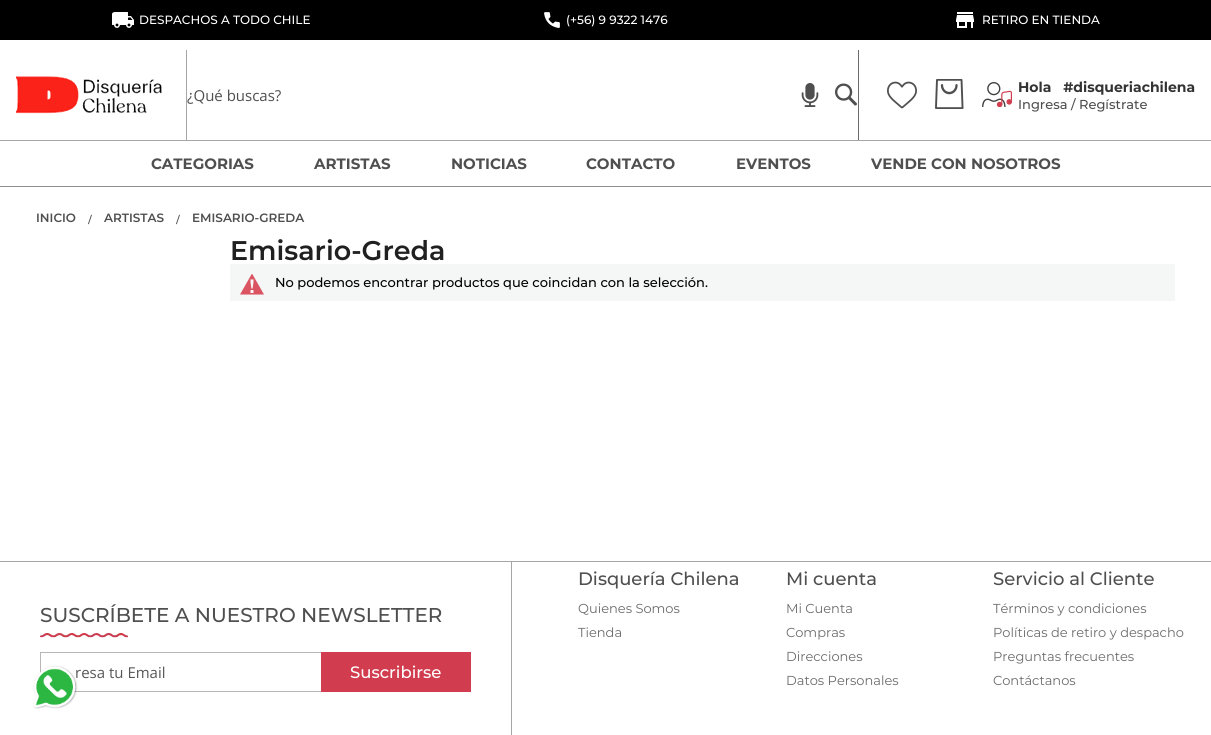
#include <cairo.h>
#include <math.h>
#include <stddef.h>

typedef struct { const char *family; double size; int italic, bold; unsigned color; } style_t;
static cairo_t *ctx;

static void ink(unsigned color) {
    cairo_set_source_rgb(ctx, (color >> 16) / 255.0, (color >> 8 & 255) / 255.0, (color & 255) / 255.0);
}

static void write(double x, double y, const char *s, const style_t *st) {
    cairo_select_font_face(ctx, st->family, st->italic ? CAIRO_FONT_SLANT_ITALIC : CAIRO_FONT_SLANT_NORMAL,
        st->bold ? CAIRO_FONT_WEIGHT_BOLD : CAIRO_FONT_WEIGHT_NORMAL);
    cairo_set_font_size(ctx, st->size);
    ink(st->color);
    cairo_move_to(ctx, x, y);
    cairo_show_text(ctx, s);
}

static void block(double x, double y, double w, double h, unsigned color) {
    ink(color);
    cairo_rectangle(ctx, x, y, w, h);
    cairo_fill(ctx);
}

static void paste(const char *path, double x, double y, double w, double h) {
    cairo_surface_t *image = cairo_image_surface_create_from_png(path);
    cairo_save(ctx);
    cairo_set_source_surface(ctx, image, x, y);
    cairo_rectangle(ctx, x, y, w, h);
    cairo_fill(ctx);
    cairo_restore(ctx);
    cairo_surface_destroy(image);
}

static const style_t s1 = {"Montserrat Medium", 12, 0, 0, 0xffffff};
static const style_t s2 = {"Open Sans", 15, 0, 0, 0x4f4f4f};
static const style_t s3 = {"Montserrat", 14, 0, 1, 0x333333};
static const style_t s4 = {"Montserrat Medium", 13, 0, 0, 0x4f4f4f};
static const style_t s5 = {"Montserrat", 15, 0, 1, 0x4f4f4f};
static const style_t s6 = {"Montserrat SemiBold", 12, 0, 0, 0x4f4f4f};
static const style_t s7 = {"Liberation Serif", 14, 0, 1, 0x4f4f4f};
static const style_t s8 = {"Montserrat SemiBold", 27, 0, 0, 0x202020};
static const style_t s9 = {"Montserrat Medium", 13, 0, 0, 0x000000};
static const style_t s10 = {"Montserrat Medium", 20, 0, 0, 0x4f4f4f};
static const style_t s11 = {"Open Sans", 15, 0, 0, 0x575757};
static const style_t s12 = {"Montserrat Medium", 16.5, 0, 0, 0xffffff};
static const style_t s13 = {"Montserrat Medium", 18, 0, 0, 0x4f4f4f};
static const style_t s14 = {"Montserrat", 13, 0, 0, 0x6b6b6b};

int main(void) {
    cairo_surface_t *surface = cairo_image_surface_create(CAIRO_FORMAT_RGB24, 1211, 735);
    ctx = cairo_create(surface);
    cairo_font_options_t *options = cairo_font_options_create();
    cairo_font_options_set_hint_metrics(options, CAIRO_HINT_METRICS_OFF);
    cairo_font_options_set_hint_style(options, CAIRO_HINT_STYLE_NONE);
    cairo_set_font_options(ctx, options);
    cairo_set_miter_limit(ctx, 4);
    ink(0xffffff);
    cairo_paint(ctx);
    block(0, 0, 1211, 40, 0x000000);
    paste("pic1.png", 112, 12, 22, 16);
    write(139, 24, "DESPACHOS A TODO CHILE", &s1);
    paste("pic2.png", 544, 12, 16, 16);
    write(566, 24, "(+56) 9 9322 1476", &s1);
    paste("pic3.png", 956, 12, 18, 16);
    write(982, 24, "RETIRO EN TIENDA", &s1);
    block(0, 140, 1211, 1, 0xa6a6a6);
    block(186, 50, 1, 90, 0xa6a6a6);
    paste("pic4.png", 16, 76, 146, 38);
    write(187, 101, "¿Qué buscas?", &s2);
    paste("pic5.png", 801, 83, 18, 24);
    paste("pic6.png", 835, 83, 22, 23);
    block(858, 50, 1, 90, 0x6b6b6b);
    paste("pic7.png", 887, 81, 30, 28);
    paste("pic8.png", 935, 79, 29, 30);
    paste("pic9.png", 982, 82, 30, 25);
    write(1018, 92, "Hola   #disqueriachilena", &s3);
    write(1018, 109, "Ingresa / Regístrate", &s4);
    block(0, 186, 1211, 1, 0x8e8e8e);
    write(151, 169, "CATEGORIAS", &s5);
    write(314, 169, "ARTISTAS", &s5);
    write(451, 169, "NOTICIAS", &s5);
    write(586, 169, "CONTACTO", &s5);
    write(736, 169, "EVENTOS", &s5);
    write(871, 169, "VENDE CON NOSOTROS", &s5);
    write(36, 222, "INICIO", &s6);
    write(88, 224, "/", &s7);
    write(104, 222, "ARTISTAS", &s6);
    write(176, 224, "/", &s7);
    write(192, 222, "EMISARIO-GREDA", &s6);
    write(230, 260, "Emisario-Greda", &s8);
    block(230, 264, 945, 37, 0xf5f6f6);
    paste("pic10.png", 240, 274, 24, 21);
    write(275, 287, "No podemos encontrar productos que coincidan con la selección.", &s9);
    block(0, 561, 1211, 1, 0xa6a6a6);
    block(511, 562, 1, 173, 0xa6a6a6);
    write(40, 622, "SUSCRÍBETE A NUESTRO NEWSLETTER", &s10);
    paste("pic11.png", 40, 633, 88, 5);
    block(40, 652, 281, 1, 0xb9b6b6);
    block(74, 691, 247, 1, 0xb9b6b6);
    block(40, 652, 1, 21, 0xb9b6b6);
    write(75, 678, "resa tu Email", &s11);
    block(321, 652, 150, 40, 0xd13d4e);
    write(350, 678, "Suscribirse", &s12);
    write(578, 585, "Disquería Chilena", &s13);
    write(578, 613, "Quienes Somos", &s14);
    write(578, 637, "Tienda", &s14);
    write(786, 585, "Mi cuenta", &s13);
    write(786, 613, "Mi Cuenta", &s14);
    write(786, 637, "Compras", &s14);
    write(786, 661, "Direcciones", &s14);
    write(786, 685, "Datos Personales", &s14);
    write(993, 585, "Servicio al Cliente", &s13);
    write(993, 613, "Términos y condiciones", &s14);
    write(993, 637, "Políticas de retiro y despacho", &s14);
    write(993, 661, "Preguntas frecuentes", &s14);
    write(993, 685, "Contáctanos", &s14);
    paste("pic12.png", 33, 666, 45, 43);
    cairo_surface_write_to_png(surface, "screenshot.png");
    cairo_font_options_destroy(options);
    cairo_destroy(ctx);
    cairo_surface_destroy(surface);
    return 0;
}
